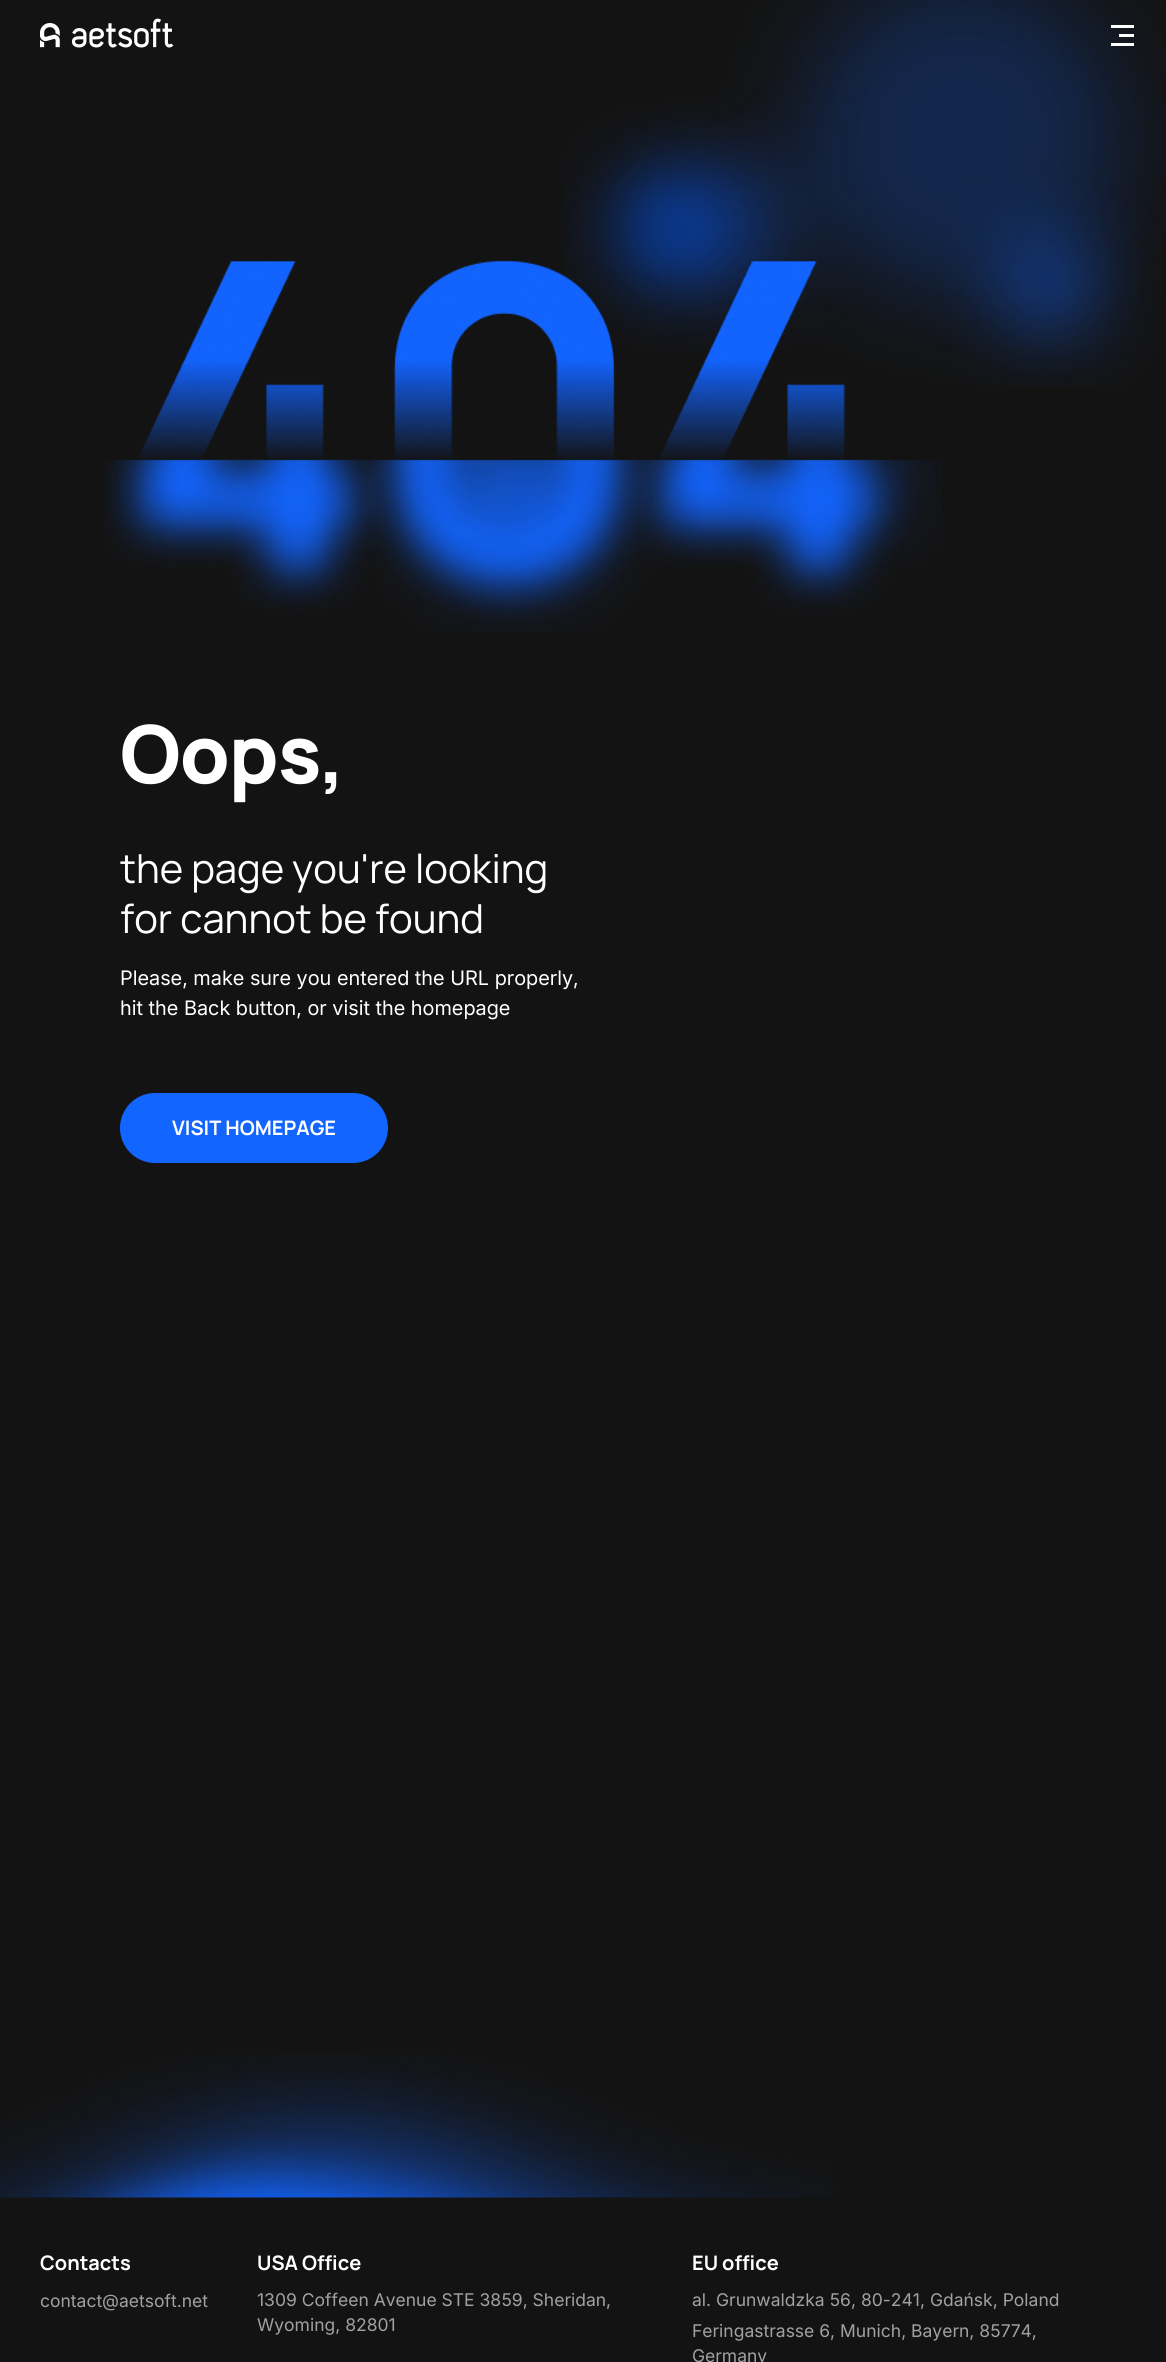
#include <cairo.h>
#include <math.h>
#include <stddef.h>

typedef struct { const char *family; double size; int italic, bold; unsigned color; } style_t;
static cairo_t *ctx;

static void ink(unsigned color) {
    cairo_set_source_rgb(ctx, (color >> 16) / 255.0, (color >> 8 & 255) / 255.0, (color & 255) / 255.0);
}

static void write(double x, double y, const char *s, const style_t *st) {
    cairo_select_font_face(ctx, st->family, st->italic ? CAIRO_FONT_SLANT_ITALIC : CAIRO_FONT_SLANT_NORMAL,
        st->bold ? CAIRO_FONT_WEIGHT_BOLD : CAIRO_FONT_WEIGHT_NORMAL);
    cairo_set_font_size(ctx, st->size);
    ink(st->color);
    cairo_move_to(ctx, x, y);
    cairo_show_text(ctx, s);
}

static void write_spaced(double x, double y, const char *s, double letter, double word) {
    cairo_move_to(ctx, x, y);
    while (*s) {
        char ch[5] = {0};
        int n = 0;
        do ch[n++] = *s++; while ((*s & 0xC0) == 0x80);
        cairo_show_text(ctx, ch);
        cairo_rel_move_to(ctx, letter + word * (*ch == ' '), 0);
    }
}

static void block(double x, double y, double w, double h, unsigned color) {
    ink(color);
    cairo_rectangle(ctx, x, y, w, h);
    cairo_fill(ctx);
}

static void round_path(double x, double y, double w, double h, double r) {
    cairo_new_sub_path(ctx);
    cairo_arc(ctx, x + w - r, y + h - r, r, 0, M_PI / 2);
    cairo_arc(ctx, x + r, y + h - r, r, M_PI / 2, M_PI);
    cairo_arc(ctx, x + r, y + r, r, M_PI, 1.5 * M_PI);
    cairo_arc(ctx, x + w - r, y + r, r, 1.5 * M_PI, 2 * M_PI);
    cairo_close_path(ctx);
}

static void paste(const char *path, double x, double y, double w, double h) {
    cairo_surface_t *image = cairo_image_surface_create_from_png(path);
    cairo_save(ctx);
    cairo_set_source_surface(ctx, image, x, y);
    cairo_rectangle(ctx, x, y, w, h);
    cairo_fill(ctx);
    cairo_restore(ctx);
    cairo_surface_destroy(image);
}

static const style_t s1 = {"Manrope", 40, 0, 0, 0xffffff};
static const style_t s2 = {"Inter", 20, 0, 0, 0xffffff};
static const style_t s3 = {"Manrope", 20, 0, 1, 0xffffff};
static const style_t s4 = {"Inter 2", 17.5, 0, 0, 0xa1a1a1};

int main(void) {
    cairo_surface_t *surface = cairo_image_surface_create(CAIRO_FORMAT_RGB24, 1166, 2362);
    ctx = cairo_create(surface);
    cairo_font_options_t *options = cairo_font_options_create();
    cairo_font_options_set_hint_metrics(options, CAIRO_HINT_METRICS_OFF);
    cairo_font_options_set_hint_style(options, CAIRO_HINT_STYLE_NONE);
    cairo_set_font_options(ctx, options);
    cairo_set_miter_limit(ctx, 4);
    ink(0x131313);
    cairo_paint(ctx);
    paste("pic1.png", 40, 18, 134, 30);
    paste("pic2.png", 562, 0, 604, 387);
    block(1111, 25, 23, 3, 0xffffff);
    block(1119, 34, 15, 3, 0xffffff);
    block(1111, 43, 23, 3, 0xffffff);
    paste("pic3.png", 104, 260, 838, 372);
    cairo_select_font_face(ctx, "Manrope ExtraBold", CAIRO_FONT_SLANT_NORMAL, CAIRO_FONT_WEIGHT_NORMAL);
    cairo_set_font_size(ctx, 80);
    write_spaced(120, 783, "Oops,", -1, 0);
    write(120, 883, "the page you're looking", &s1);
    write(120, 933, "for cannot be found", &s1);
    write(120, 985, "Please, make sure you entered the URL properly,", &s2);
    write(120, 1015, "hit the Back button, or visit the homepage", &s2);
    ink(0x1365ff);
    round_path(120, 1093, 268, 70, 35);
    cairo_fill(ctx);
    write(172, 1135, "VISIT HOMEPAGE", &s3);
    paste("pic4.png", 0, 2054, 833, 144);
    write(40, 2270, "Contacts", &s3);
    write(40, 2307, "contact@aetsoft.net", &s4);
    write(257, 2270, "USA Office", &s3);
    write(257, 2306, "1309 Coffeen Avenue STE 3859, Sheridan,", &s4);
    write(257, 2331, "Wyoming, 82801", &s4);
    write(692, 2270, "EU office", &s3);
    write(692, 2306, "al. Grunwaldzka 56, 80-241, Gdańsk, Poland", &s4);
    write(692, 2337, "Feringastrasse 6, Munich, Bayern, 85774,", &s4);
    write(692, 2362, "Germany", &s4);
    cairo_surface_write_to_png(surface, "screenshot.png");
    cairo_font_options_destroy(options);
    cairo_destroy(ctx);
    cairo_surface_destroy(surface);
    return 0;
}
